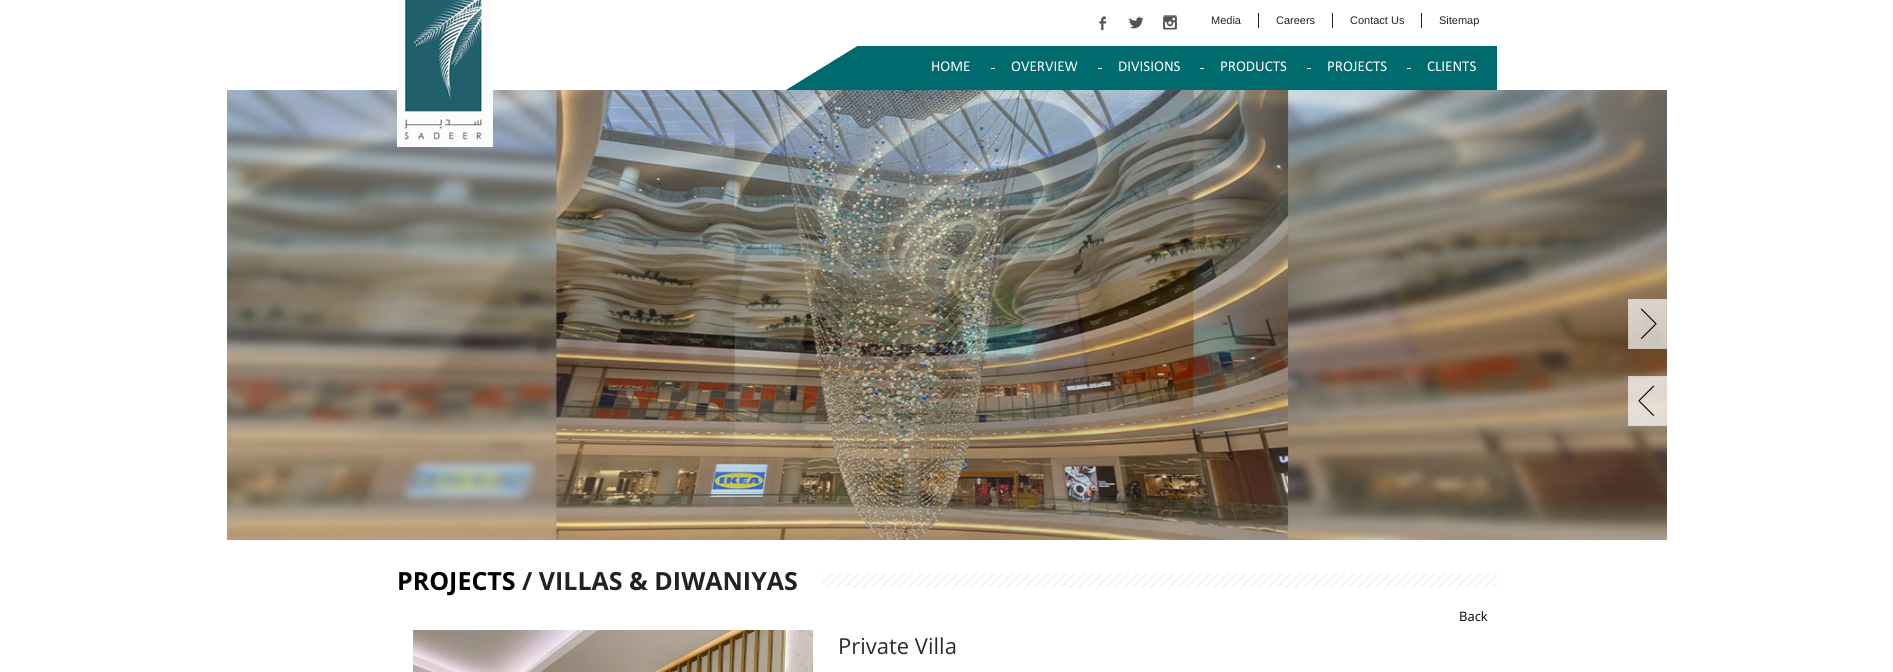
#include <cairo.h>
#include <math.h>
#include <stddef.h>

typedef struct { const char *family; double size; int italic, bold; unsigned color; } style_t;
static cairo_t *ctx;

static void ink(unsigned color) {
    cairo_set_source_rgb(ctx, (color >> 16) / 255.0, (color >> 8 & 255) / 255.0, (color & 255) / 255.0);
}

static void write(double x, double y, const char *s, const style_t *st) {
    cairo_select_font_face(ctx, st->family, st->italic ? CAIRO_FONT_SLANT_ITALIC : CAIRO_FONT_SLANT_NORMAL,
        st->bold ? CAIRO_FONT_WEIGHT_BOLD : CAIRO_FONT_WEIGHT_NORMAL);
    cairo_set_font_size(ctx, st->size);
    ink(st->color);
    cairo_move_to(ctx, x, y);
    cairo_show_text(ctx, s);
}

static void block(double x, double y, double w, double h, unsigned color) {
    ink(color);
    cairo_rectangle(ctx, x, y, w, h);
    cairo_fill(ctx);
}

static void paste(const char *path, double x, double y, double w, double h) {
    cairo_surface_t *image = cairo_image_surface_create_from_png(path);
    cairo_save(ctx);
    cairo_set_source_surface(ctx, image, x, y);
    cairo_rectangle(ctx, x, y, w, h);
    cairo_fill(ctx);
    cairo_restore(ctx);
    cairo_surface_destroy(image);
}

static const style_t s1 = {"Liberation Sans", 11, 0, 0, 0x222222};
static const style_t s2 = {"Calibri", 15, 0, 0, 0xffffff};
static const style_t s3 = {"Open Sans", 25, 0, 1, 0x000000};
static const style_t s4 = {"Open Sans", 25, 0, 1, 0x222222};
static const style_t s5 = {"Open Sans", 13, 0, 0, 0x000000};
static const style_t s6 = {"Open Sans", 22, 0, 0, 0x2c2c2c};

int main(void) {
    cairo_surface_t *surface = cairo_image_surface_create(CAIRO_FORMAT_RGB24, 1893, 672);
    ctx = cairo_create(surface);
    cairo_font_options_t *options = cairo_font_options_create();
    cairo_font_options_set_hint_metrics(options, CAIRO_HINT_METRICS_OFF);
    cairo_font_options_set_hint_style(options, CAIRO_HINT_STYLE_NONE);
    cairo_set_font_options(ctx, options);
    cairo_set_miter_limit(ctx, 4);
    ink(0xffffff);
    cairo_paint(ctx);
    paste("pic6.png", 227, 90, 1440, 450);
    paste("pic7.png", 227, 90, 1440, 450);
    paste("pic8.png", 227, 90, 1440, 450);
    paste("pic1.png", 397, 0, 96, 147);
    paste("pic2.png", 1099, 16, 8, 15);
    paste("pic3.png", 1128, 16, 16, 13);
    paste("pic4.png", 1163, 15, 14, 15);
    write(1211, 24, "Media", &s1);
    block(1258, 13, 1, 15, 0x222222);
    write(1276, 24, "Careers", &s1);
    block(1332, 13, 1, 15, 0x222222);
    write(1350, 24, "Contact Us", &s1);
    block(1421, 13, 1, 15, 0x222222);
    write(1439, 24, "Sitemap", &s1);
    paste("pic5.png", 786, 46, 711, 44);
    write(931, 71, "HOME", &s2);
    block(991, 68, 4, 1, 0xffffff);
    write(1011, 71, "OVERVIEW", &s2);
    block(1098, 68, 4, 1, 0xffffff);
    write(1118, 71, "DIVISIONS", &s2);
    block(1200, 68, 4, 1, 0xffffff);
    write(1220, 71, "PRODUCTS", &s2);
    block(1307, 68, 4, 1, 0xffffff);
    write(1327, 71, "PROJECTS", &s2);
    block(1407, 68, 4, 1, 0xffffff);
    write(1427, 71, "CLIENTS", &s2);
    paste("pic9.png", 1628, 299, 39, 50);
    paste("pic10.png", 1628, 376, 39, 50);
    paste("pic11.png", 822, 573, 675, 15);
    write(397, 590, "PROJECTS", &s3);
    write(522, 590, "/ VILLAS & DIWANIYAS", &s4);
    write(1459, 621, "Back", &s5);
    paste("pic12.png", 413, 630, 400, 42);
    write(838, 654, "Private Villa", &s6);
    cairo_surface_write_to_png(surface, "screenshot.png");
    cairo_font_options_destroy(options);
    cairo_destroy(ctx);
    cairo_surface_destroy(surface);
    return 0;
}
